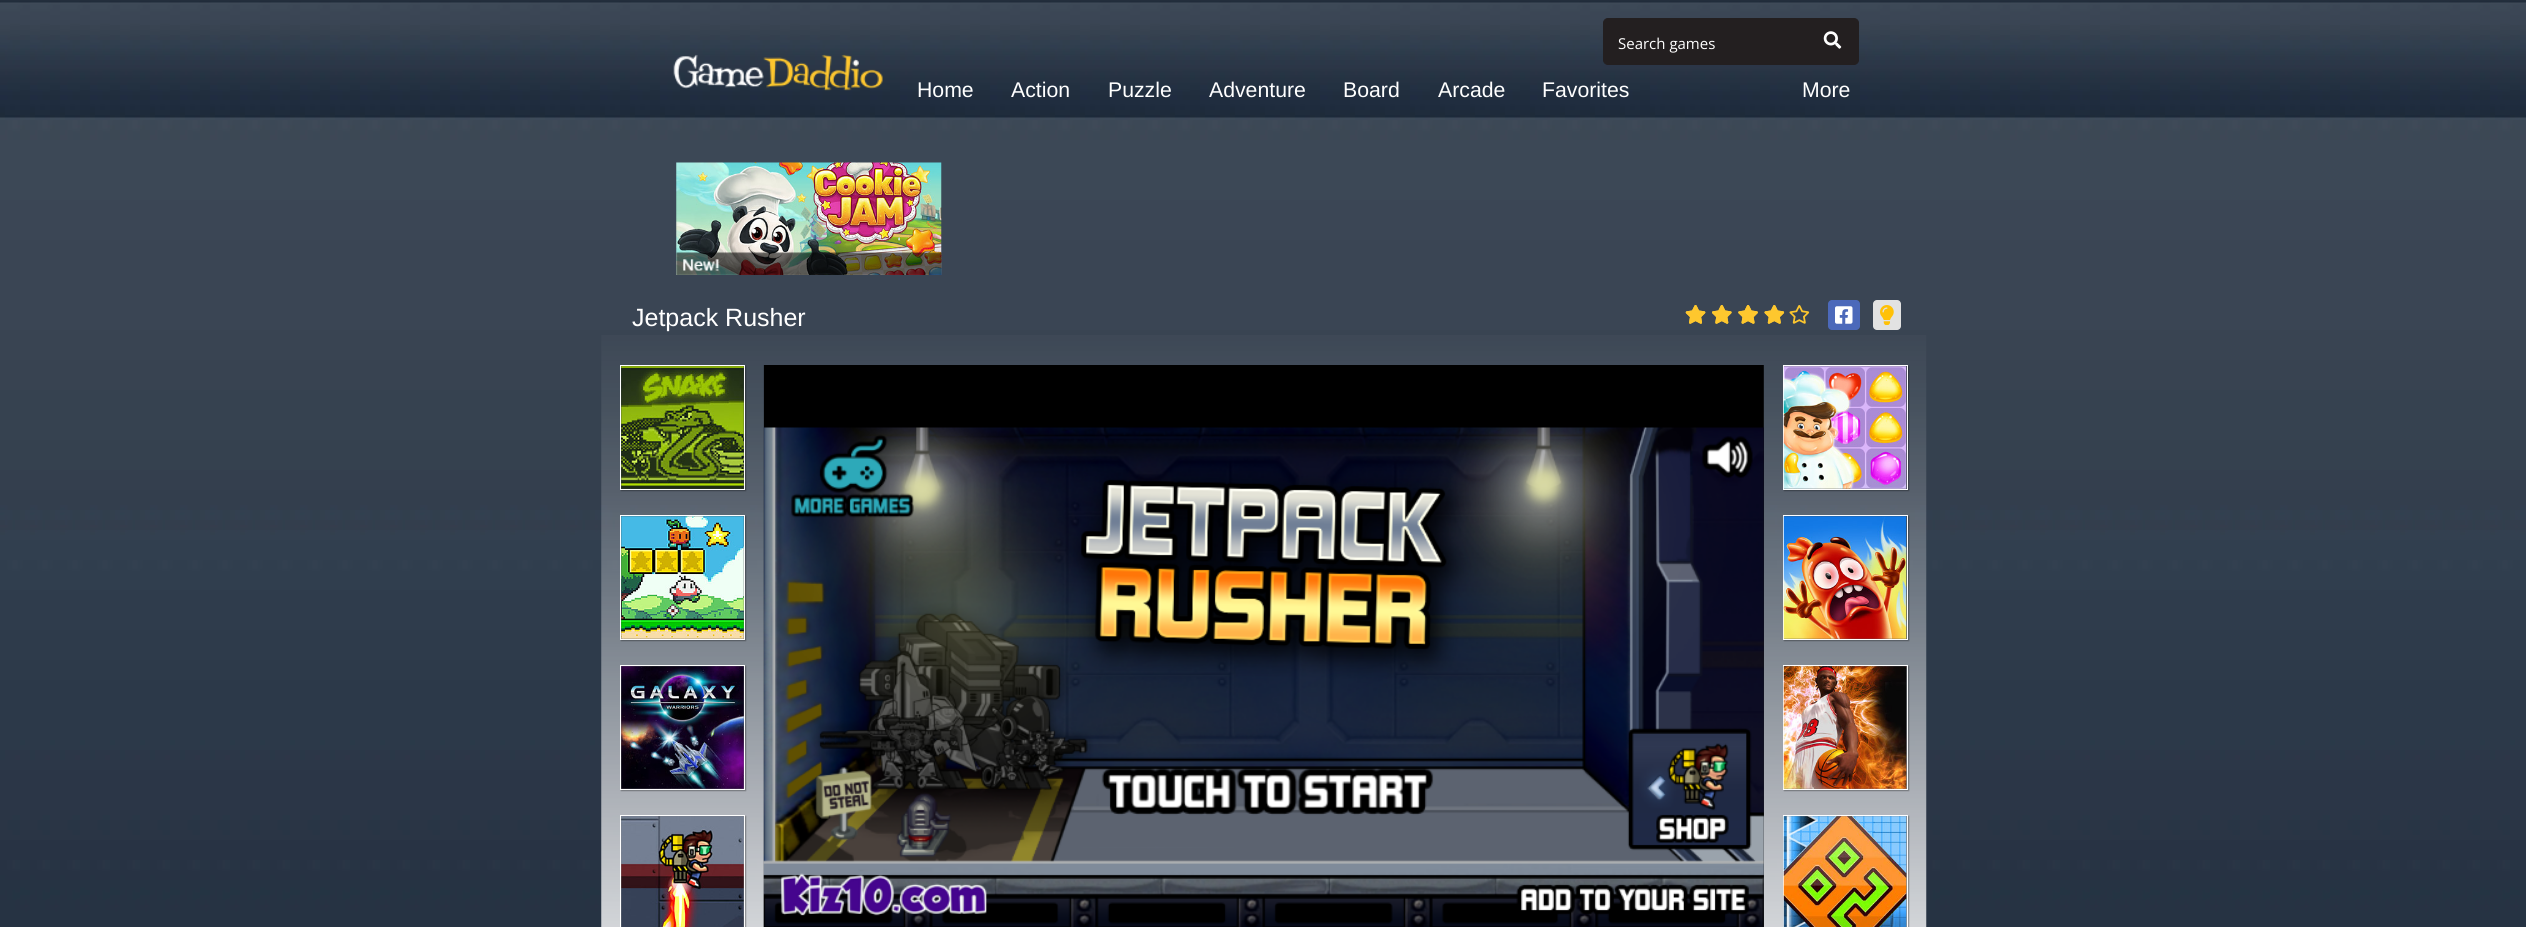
#include <cairo.h>
#include <math.h>
#include <stddef.h>

typedef struct { const char *family; double size; int italic, bold; unsigned color; } style_t;
static cairo_t *ctx;

static void ink(unsigned color) {
    cairo_set_source_rgb(ctx, (color >> 16) / 255.0, (color >> 8 & 255) / 255.0, (color & 255) / 255.0);
}

static void write(double x, double y, const char *s, const style_t *st) {
    cairo_select_font_face(ctx, st->family, st->italic ? CAIRO_FONT_SLANT_ITALIC : CAIRO_FONT_SLANT_NORMAL,
        st->bold ? CAIRO_FONT_WEIGHT_BOLD : CAIRO_FONT_WEIGHT_NORMAL);
    cairo_set_font_size(ctx, st->size);
    ink(st->color);
    cairo_move_to(ctx, x, y);
    cairo_show_text(ctx, s);
}

static void round_path(double x, double y, double w, double h, double r) {
    cairo_new_sub_path(ctx);
    cairo_arc(ctx, x + w - r, y + h - r, r, 0, M_PI / 2);
    cairo_arc(ctx, x + r, y + h - r, r, M_PI / 2, M_PI);
    cairo_arc(ctx, x + r, y + r, r, M_PI, 1.5 * M_PI);
    cairo_arc(ctx, x + w - r, y + r, r, 1.5 * M_PI, 2 * M_PI);
    cairo_close_path(ctx);
}

static void blur_box(double x, double y, double w, double h, double r, double blur, double alpha) {
    cairo_push_group_with_content(ctx, CAIRO_CONTENT_ALPHA);
    cairo_set_operator(ctx, CAIRO_OPERATOR_SOURCE);
    for (int i = 15; i >= -15 && fmin(w, h) + blur * i / 3 > 0; i -= 2) {
        double e = blur * i / 6;
        cairo_set_source_rgba(ctx, 0, 0, 0, alpha * erfc((i - 1) / 8.5) / 2);
        round_path(x - e, y - e, w + 2 * e, h + 2 * e, fmax(0, fmin(r + e + blur * .6, fmin(w, h) / 2 + e)));
        cairo_fill(ctx);
    }
    cairo_pattern_t *soft = cairo_pop_group(ctx);
    cairo_mask(ctx, soft);
    cairo_pattern_destroy(soft);
}

static void paste(const char *path, double x, double y, double w, double h) {
    cairo_surface_t *image = cairo_image_surface_create_from_png(path);
    cairo_save(ctx);
    cairo_set_source_surface(ctx, image, x, y);
    cairo_rectangle(ctx, x, y, w, h);
    cairo_fill(ctx);
    cairo_restore(ctx);
    cairo_surface_destroy(image);
}

static const style_t s1 = {"Open Sans", 15, 0, 0, 0xffffff};
static const style_t s2 = {"Liberation Sans", 21.25, 0, 0, 0xffffff};
static const style_t s3 = {"Liberation Sans", 25, 0, 0, 0xffffff};

int main(void) {
    cairo_surface_t *surface = cairo_image_surface_create(CAIRO_FORMAT_RGB24, 2526, 927);
    ctx = cairo_create(surface);
    cairo_font_options_t *options = cairo_font_options_create();
    cairo_font_options_set_hint_metrics(options, CAIRO_HINT_METRICS_OFF);
    cairo_font_options_set_hint_style(options, CAIRO_HINT_STYLE_NONE);
    cairo_set_font_options(ctx, options);
    cairo_set_miter_limit(ctx, 4);
    ink(0xffffff);
    cairo_paint(ctx);
    paste("pic1.png", 0, 0, 2526, 927);
    ink(0x231f20);
    round_path(1603.5, 18.5, 255, 46, 4.5);
    cairo_fill_preserve(ctx);
    cairo_set_line_width(ctx, 1);
    cairo_stroke(ctx);
    write(1618, 49, "Search games", &s1);
    paste("pic2.png", 1823, 31, 19, 18);
    paste("pic3.png", 673, 54, 210, 37);
    write(917, 97, "Home", &s2);
    write(1011, 97, "Action", &s2);
    write(1108, 97, "Puzzle", &s2);
    write(1209, 97, "Adventure", &s2);
    write(1343, 97, "Board", &s2);
    write(1438, 97, "Arcade", &s2);
    write(1542, 97, "Favorites", &s2);
    write(1802, 97, "More", &s2);
    paste("pic4.png", 676, 162, 266, 113);
    paste("pic5.png", 676, 252, 266, 23);
    write(632, 326, "Jetpack Rusher", &s3);
    paste("pic6.png", 1685, 305, 21, 19);
    paste("pic7.png", 1712, 305, 20, 19);
    paste("pic8.png", 1738, 305, 20, 19);
    paste("pic9.png", 1764, 305, 21, 19);
    paste("pic9.png", 1789, 305, 21, 19);
    paste("pic10.png", 1685, 305, 21, 19);
    paste("pic11.png", 1712, 305, 20, 19);
    paste("pic12.png", 1738, 305, 20, 19);
    paste("pic13.png", 1764, 305, 21, 19);
    ink(0x4c69ba);
    round_path(1828, 300, 32, 30, 4);
    cairo_fill(ctx);
    paste("pic14.png", 1835, 306, 18, 18);
    ink(0xe2e2e2);
    round_path(1873, 300, 28, 30, 4);
    cairo_fill(ctx);
    paste("pic15.png", 1880, 305, 14, 20);
    paste("pic16.png", 601, 335, 1326, 592);
    ink(0x000000);
    blur_box(621, 366, 125, 125, 0, 0.5, 0.32);
    cairo_rectangle(ctx, 620.5, 365.5, 124, 124);
    ink(0xffffff);
    cairo_stroke(ctx);
    paste("pic17.png", 621, 366, 123, 123);
    ink(0x000000);
    blur_box(621, 516, 125, 125, 0, 0.5, 0.32);
    cairo_rectangle(ctx, 620.5, 515.5, 124, 124);
    ink(0xffffff);
    cairo_stroke(ctx);
    paste("pic18.png", 621, 516, 123, 123);
    ink(0x000000);
    blur_box(621, 666, 125, 125, 0, 0.5, 0.32);
    cairo_rectangle(ctx, 620.5, 665.5, 124, 124);
    ink(0xffffff);
    cairo_stroke(ctx);
    paste("pic19.png", 621, 666, 123, 123);
    ink(0x000000);
    blur_box(621, 816, 125, 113, 0, 0.5, 0.32);
    cairo_rectangle(ctx, 620.5, 815.5, 124, 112);
    ink(0xffffff);
    cairo_stroke(ctx);
    paste("pic20.png", 621, 816, 123, 111);
    paste("pic21.png", 763, 365, 1001, 562);
    ink(0x000000);
    blur_box(1784, 366, 125, 125, 0, 0.5, 0.32);
    cairo_rectangle(ctx, 1783.5, 365.5, 124, 124);
    ink(0xffffff);
    cairo_stroke(ctx);
    paste("pic22.png", 1783, 366, 124, 123);
    ink(0x000000);
    blur_box(1784, 516, 125, 125, 0, 0.5, 0.32);
    cairo_rectangle(ctx, 1783.5, 515.5, 124, 124);
    ink(0xffffff);
    cairo_stroke(ctx);
    paste("pic23.png", 1783, 516, 124, 123);
    ink(0x000000);
    blur_box(1784, 666, 125, 125, 0, 0.5, 0.32);
    cairo_rectangle(ctx, 1783.5, 665.5, 124, 124);
    ink(0xffffff);
    cairo_stroke(ctx);
    paste("pic24.png", 1783, 666, 124, 123);
    ink(0x000000);
    blur_box(1784, 816, 125, 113, 0, 0.5, 0.32);
    cairo_rectangle(ctx, 1783.5, 815.5, 124, 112);
    ink(0xffffff);
    cairo_stroke(ctx);
    paste("pic25.png", 1783, 816, 124, 111);
    cairo_surface_write_to_png(surface, "screenshot.png");
    cairo_font_options_destroy(options);
    cairo_destroy(ctx);
    cairo_surface_destroy(surface);
    return 0;
}
